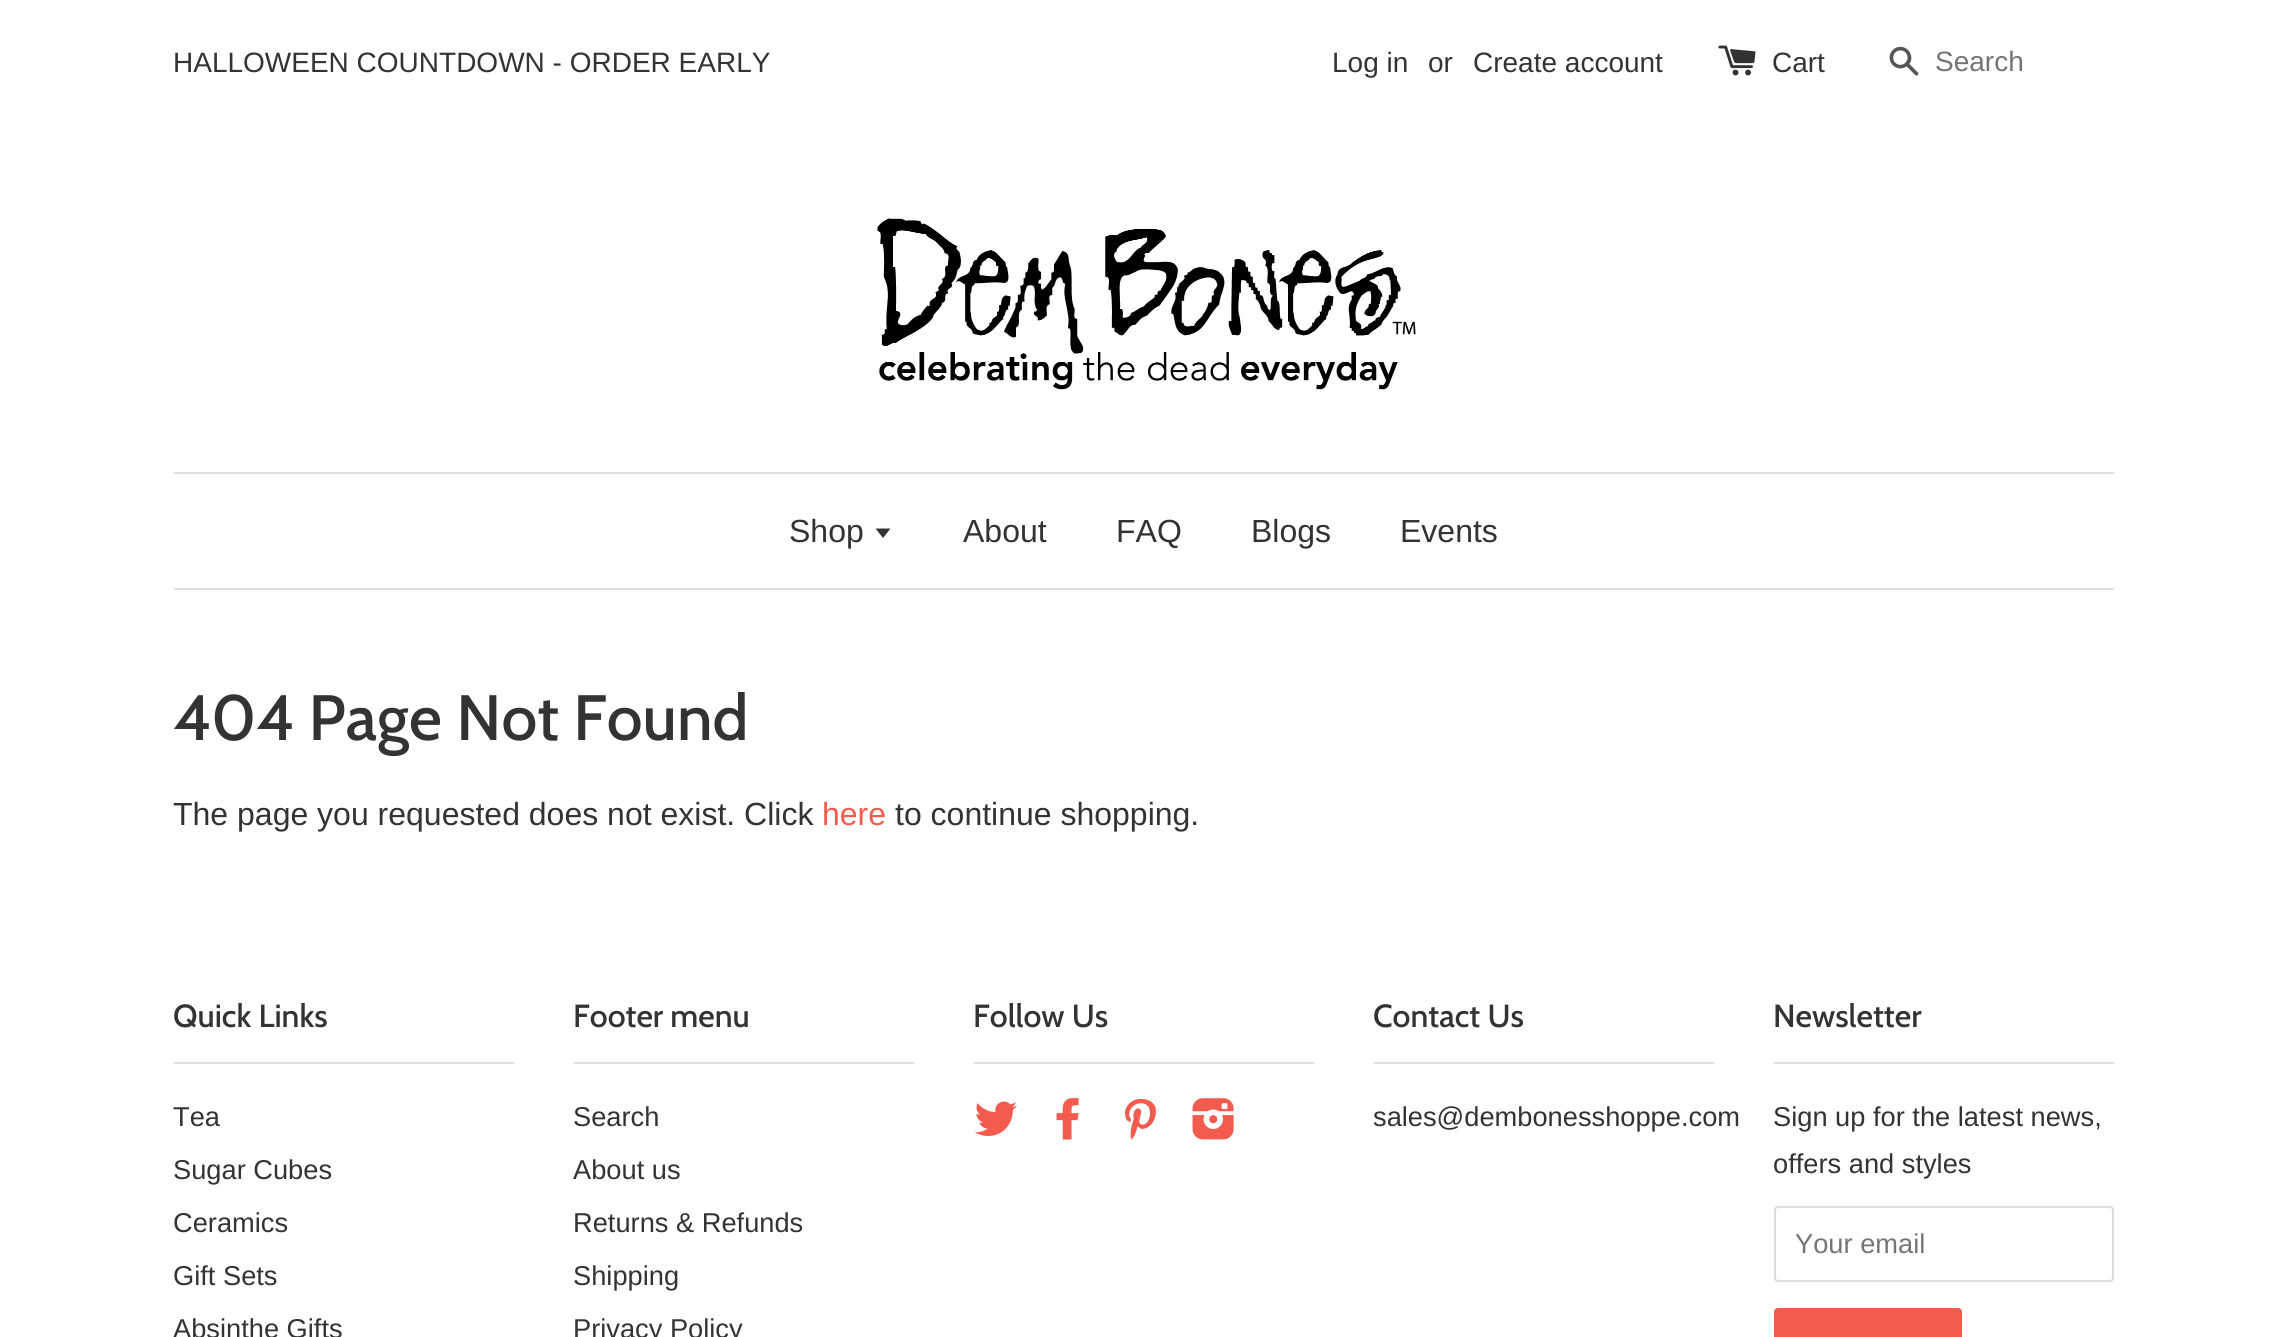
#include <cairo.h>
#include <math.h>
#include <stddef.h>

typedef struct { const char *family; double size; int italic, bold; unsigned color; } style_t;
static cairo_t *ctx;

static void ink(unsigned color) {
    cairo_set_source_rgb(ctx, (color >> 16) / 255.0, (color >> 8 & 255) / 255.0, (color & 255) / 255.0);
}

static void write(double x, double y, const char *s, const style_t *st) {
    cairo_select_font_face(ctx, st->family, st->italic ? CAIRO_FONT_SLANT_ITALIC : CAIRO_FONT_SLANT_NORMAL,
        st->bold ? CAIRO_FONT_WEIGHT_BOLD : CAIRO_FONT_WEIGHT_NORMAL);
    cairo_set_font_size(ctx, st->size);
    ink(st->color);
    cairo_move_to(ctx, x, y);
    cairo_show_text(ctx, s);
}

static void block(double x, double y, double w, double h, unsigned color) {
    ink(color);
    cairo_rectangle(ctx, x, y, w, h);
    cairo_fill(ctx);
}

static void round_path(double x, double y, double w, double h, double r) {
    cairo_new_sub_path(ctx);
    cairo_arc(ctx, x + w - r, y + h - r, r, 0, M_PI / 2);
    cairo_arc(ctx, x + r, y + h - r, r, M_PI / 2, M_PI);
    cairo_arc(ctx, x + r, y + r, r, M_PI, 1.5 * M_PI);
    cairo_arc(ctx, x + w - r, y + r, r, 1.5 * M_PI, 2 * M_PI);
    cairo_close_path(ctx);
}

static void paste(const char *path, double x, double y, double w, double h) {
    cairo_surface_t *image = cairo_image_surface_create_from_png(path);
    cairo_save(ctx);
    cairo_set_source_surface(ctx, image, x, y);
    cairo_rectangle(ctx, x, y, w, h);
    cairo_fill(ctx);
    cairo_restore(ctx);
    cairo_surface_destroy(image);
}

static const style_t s1 = {"Liberation Sans", 28, 0, 0, 0x333333};
static const style_t s2 = {"Liberation Sans", 28, 0, 0, 0x757575};
static const style_t s3 = {"Liberation Sans", 32, 0, 0, 0x333333};
static const style_t s4 = {"Cabin Medium", 64, 0, 0, 0x333333};
static const style_t s5 = {"Liberation Sans", 32, 0, 0, 0xf45b4f};
static const style_t s6 = {"Cabin Medium", 32, 0, 0, 0x333333};
static const style_t s7 = {"Liberation Sans", 27.25, 0, 0, 0x333333};
static const style_t s8 = {"Liberation Sans", 27.25, 0, 0, 0x757575};

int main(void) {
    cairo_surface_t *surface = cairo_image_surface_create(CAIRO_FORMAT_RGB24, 2286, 1337);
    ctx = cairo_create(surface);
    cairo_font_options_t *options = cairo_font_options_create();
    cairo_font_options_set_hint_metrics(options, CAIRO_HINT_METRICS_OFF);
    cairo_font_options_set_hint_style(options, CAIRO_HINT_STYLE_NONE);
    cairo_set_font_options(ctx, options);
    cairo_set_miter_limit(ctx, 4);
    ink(0xffffff);
    cairo_paint(ctx);
    write(173, 72, "HALLOWEEN COUNTDOWN - ORDER EARLY", &s1);
    write(1332, 72, "Log in", &s1);
    write(1428, 72, "or", &s1);
    write(1473, 72, "Create account", &s1);
    paste("pic1.png", 1718, 45, 38, 31);
    write(1772, 72, "Cart", &s1);
    paste("pic2.png", 1889, 46, 30, 30);
    write(1935, 71, "Search", &s2);
    paste("pic3.png", 877, 218, 539, 172);
    block(174, 472, 1940, 2, 0xdddddd);
    block(174, 588, 1940, 2, 0xdddddd);
    write(789, 542, "Shop", &s3);
    cairo_new_path(ctx);
    cairo_move_to(ctx, 875.5, 528.5);
    cairo_line_to(ctx, 883, 538);
    cairo_line_to(ctx, 890.5, 528.5);
    cairo_close_path(ctx);
    cairo_fill(ctx);
    write(963, 542, "About", &s3);
    write(1116, 542, "FAQ", &s3);
    write(1251, 542, "Blogs", &s3);
    write(1400, 542, "Events", &s3);
    write(173, 740, "404 Page Not Found", &s4);
    write(173, 825, "The page you requested does not exist. Click", &s3);
    write(822, 825, "here", &s5);
    write(895, 825, "to continue shopping.", &s3);
    block(174, 1062, 340, 2, 0xdddddd);
    write(173, 1027, "Quick Links", &s6);
    write(173, 1126, "Tea", &s7);
    write(173, 1179, "Sugar Cubes", &s7);
    write(173, 1232, "Ceramics", &s7);
    write(173, 1285, "Gift Sets", &s7);
    write(173, 1338, "Absinthe Gifts", &s7);
    block(574, 1062, 340, 2, 0xdddddd);
    write(573, 1027, "Footer menu", &s6);
    write(573, 1126, "Search", &s7);
    write(573, 1179, "About us", &s7);
    write(573, 1232, "Returns & Refunds", &s7);
    write(573, 1285, "Shipping", &s7);
    write(573, 1338, "Privacy Policy", &s7);
    block(974, 1062, 340, 2, 0xdddddd);
    write(973, 1027, "Follow Us", &s6);
    paste("pic4.png", 974, 1101, 43, 35);
    paste("pic5.png", 1056, 1098, 23, 42);
    paste("pic6.png", 1125, 1098, 31, 42);
    paste("pic7.png", 1192, 1098, 42, 42);
    block(1374, 1062, 340, 2, 0xdddddd);
    write(1373, 1027, "Contact Us", &s6);
    write(1373, 1126, "sales@dembonesshoppe.com", &s7);
    block(1774, 1062, 340, 2, 0xdddddd);
    write(1773, 1027, "Newsletter", &s6);
    write(1773, 1126, "Sign up for the latest news,", &s7);
    write(1773, 1173, "offers and styles", &s7);
    round_path(1775, 1207, 338, 74, 3);
    ink(0xdddddd);
    cairo_stroke(ctx);
    write(1795, 1253, "Your email", &s8);
    ink(0xf45b4f);
    round_path(1774, 1308, 188, 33, 4);
    cairo_fill(ctx);
    cairo_surface_write_to_png(surface, "screenshot.png");
    cairo_font_options_destroy(options);
    cairo_destroy(ctx);
    cairo_surface_destroy(surface);
    return 0;
}
